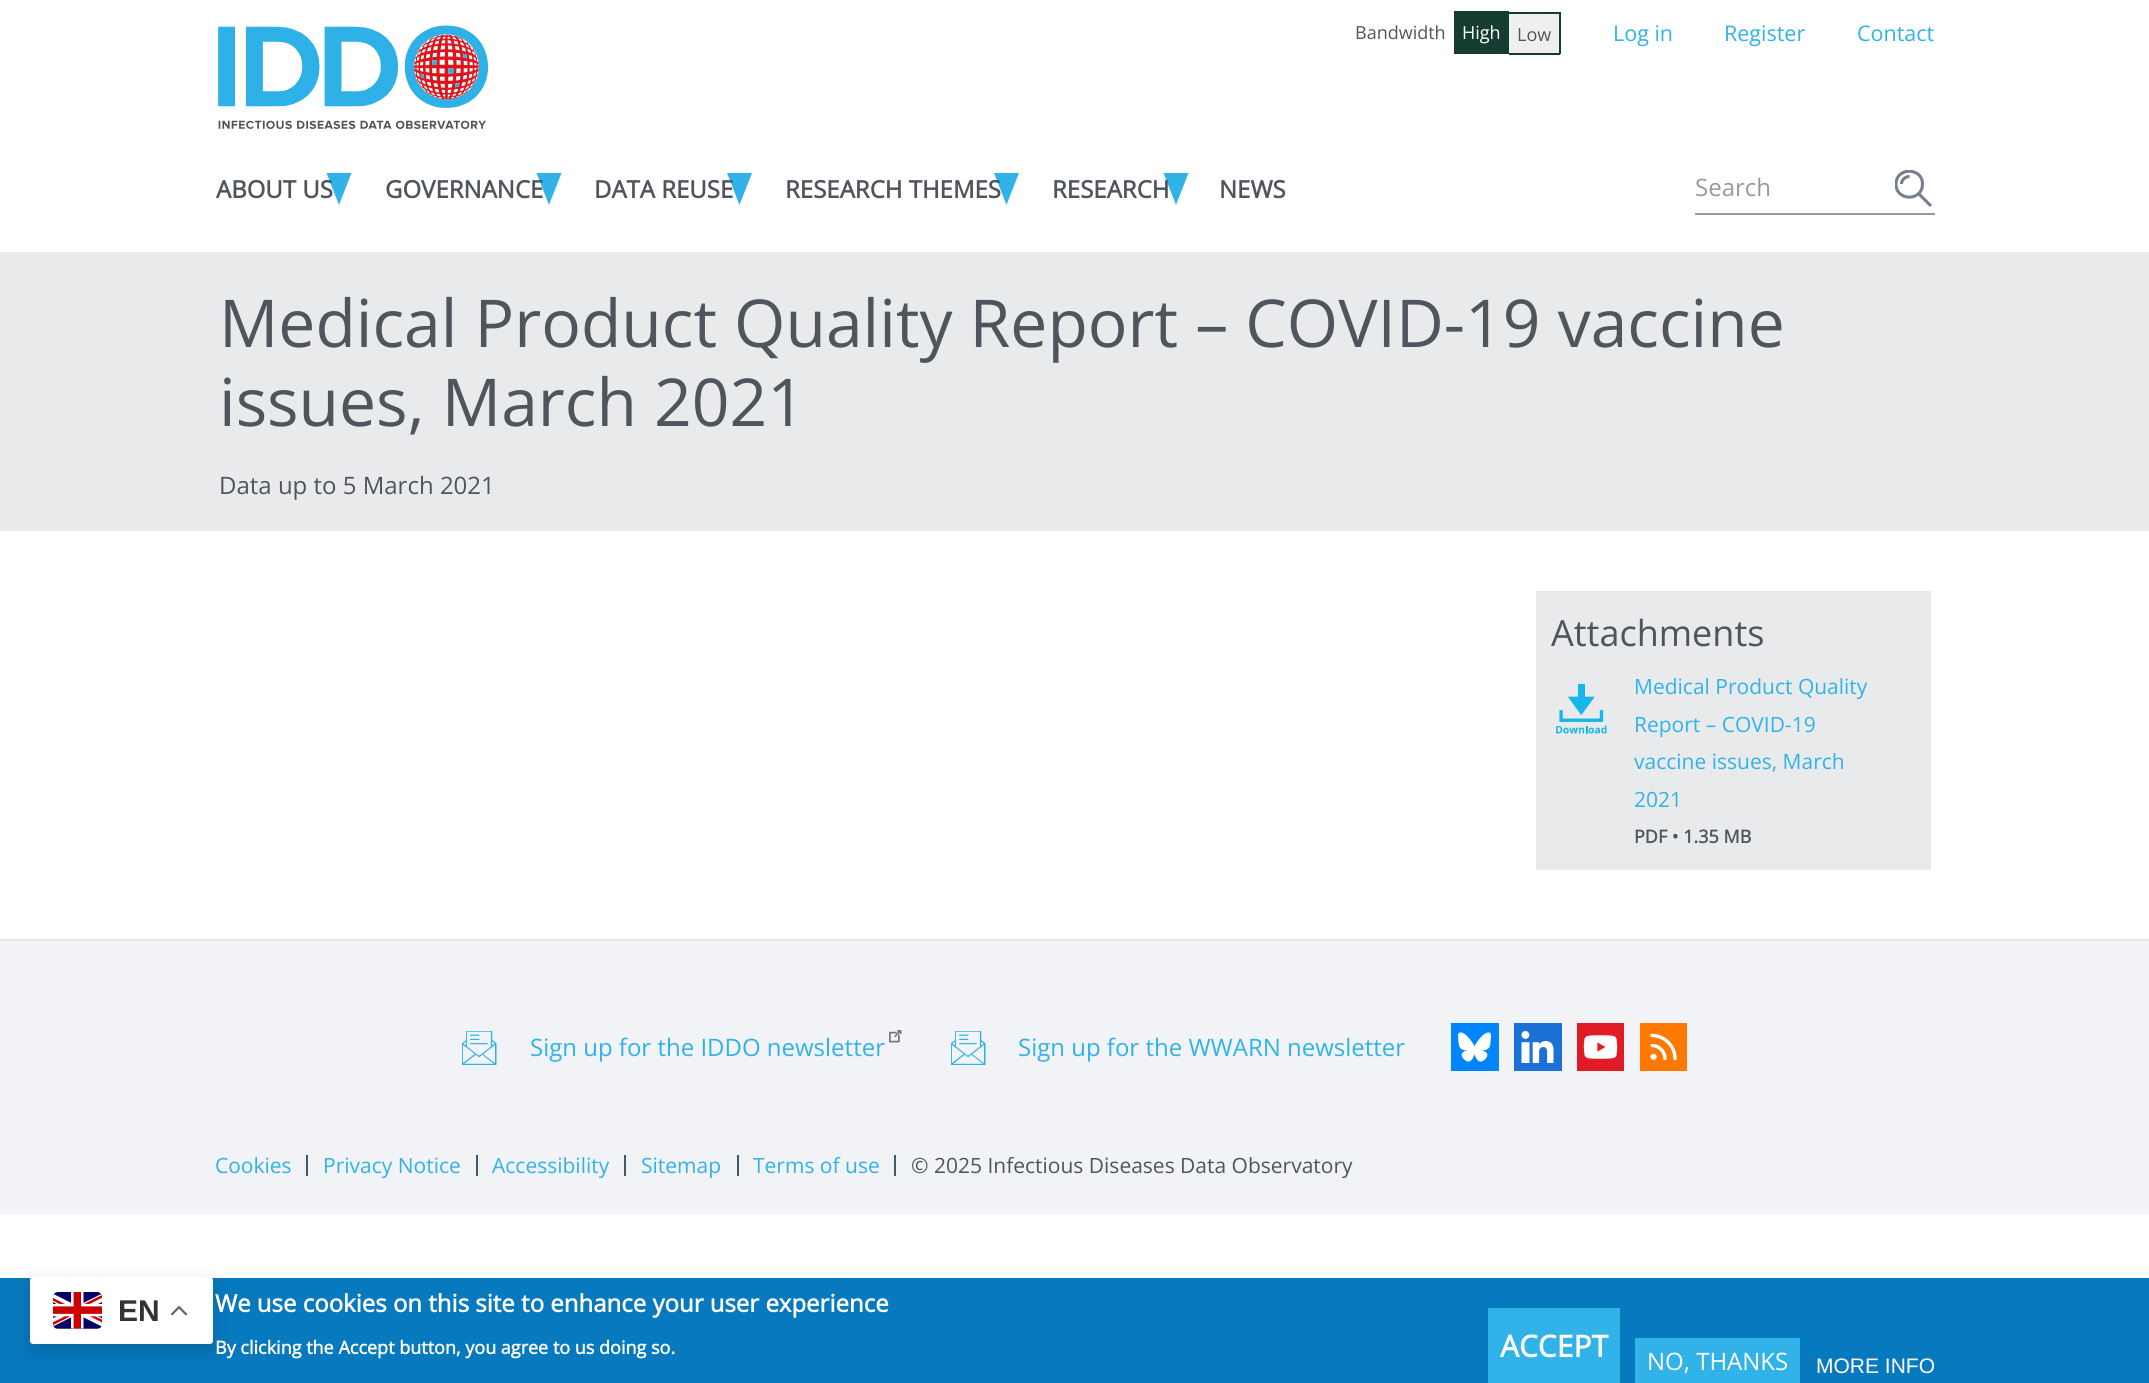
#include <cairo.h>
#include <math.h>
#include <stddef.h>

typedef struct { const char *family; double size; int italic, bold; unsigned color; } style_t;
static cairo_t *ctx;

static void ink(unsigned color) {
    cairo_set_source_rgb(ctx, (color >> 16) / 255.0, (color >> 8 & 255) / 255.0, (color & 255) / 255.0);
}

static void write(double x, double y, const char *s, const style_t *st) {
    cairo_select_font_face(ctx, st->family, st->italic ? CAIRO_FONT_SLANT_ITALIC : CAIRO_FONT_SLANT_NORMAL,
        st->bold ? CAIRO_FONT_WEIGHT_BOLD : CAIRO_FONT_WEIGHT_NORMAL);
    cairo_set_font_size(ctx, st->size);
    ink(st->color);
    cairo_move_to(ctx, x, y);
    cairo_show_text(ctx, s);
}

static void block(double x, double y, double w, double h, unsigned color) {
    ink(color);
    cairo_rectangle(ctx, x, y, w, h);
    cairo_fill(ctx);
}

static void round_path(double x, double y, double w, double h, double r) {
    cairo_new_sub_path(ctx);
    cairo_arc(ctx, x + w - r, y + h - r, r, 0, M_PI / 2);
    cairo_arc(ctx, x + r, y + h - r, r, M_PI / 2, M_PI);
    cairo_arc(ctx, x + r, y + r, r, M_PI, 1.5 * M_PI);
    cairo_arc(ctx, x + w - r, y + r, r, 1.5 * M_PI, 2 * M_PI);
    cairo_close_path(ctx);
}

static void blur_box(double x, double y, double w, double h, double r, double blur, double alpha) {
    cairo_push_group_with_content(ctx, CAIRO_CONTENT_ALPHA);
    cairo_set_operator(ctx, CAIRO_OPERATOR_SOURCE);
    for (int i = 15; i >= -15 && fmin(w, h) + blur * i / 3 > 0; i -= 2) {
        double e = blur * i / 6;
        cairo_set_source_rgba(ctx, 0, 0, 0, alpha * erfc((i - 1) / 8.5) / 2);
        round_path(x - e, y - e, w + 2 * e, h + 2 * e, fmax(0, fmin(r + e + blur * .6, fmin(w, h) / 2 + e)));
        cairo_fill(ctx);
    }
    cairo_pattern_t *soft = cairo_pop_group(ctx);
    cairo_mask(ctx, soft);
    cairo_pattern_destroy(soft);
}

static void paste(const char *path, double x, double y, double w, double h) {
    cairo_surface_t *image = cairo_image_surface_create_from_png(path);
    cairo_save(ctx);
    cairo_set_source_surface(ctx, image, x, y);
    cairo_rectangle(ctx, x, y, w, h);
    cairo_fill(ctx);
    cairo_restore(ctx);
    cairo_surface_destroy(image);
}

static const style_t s1 = {"Open Sans", 18, 0, 0, 0x50545d};
static const style_t s2 = {"Open Sans", 18, 0, 0, 0xffffff};
static const style_t s3 = {"Open Sans", 21.5, 0, 0, 0x31b2e8};
static const style_t s4 = {"Open Sans", 24, 0, 1, 0x50545d};
static const style_t s5 = {"Open Sans", 24, 0, 0, 0x999999};
static const style_t s6 = {"Open Sans", 66, 0, 0, 0x50545d};
static const style_t s7 = {"Open Sans", 24, 0, 0, 0x50545d};
static const style_t s8 = {"Open Sans", 36, 0, 0, 0x50545d};
static const style_t s9 = {"Open Sans", 21, 0, 0, 0x31b2e8};
static const style_t s10 = {"Open Sans", 18, 0, 1, 0x50545d};
static const style_t s11 = {"Liberation Sans", 30, 0, 1, 0x333333};
static const style_t s12 = {"Open Sans", 24, 0, 0, 0x31b2e8};
static const style_t s13 = {"Open Sans", 21, 0, 0, 0x50545d};
static const style_t s14 = {"Open Sans", 24, 0, 1, 0xffffff};
static const style_t s15 = {"Open Sans", 18, 0, 1, 0xffffff};
static const style_t s16 = {"Open Sans", 30, 0, 1, 0xffffff};
static const style_t s17 = {"Open Sans", 24, 0, 0, 0xffffff};
static const style_t s18 = {"Liberation Sans", 21, 0, 0, 0xffffff};

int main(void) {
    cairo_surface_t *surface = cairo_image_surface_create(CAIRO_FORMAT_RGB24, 2149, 1383);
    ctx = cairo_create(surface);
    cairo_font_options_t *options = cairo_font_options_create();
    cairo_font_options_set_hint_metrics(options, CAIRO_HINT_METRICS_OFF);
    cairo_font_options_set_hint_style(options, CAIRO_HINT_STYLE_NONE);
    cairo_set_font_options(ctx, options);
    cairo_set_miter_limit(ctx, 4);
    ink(0xffffff);
    cairo_paint(ctx);
    paste("pic1.png", 218, 25, 271, 104);
    write(1355, 39, "Bandwidth", &s1);
    block(1454, 11, 55, 43, 0x153c31);
    write(1462, 39, "High", &s2);
    block(1509, 14, 50, 39, 0xefefef);
    block(1509, 12, 51, 2, 0x153c31);
    block(1559, 12, 2, 42, 0x153c31);
    block(1509, 53, 51, 2, 0x153c31);
    write(1517, 41, "Low", &s1);
    write(1613, 41, "Log in", &s3);
    write(1724, 41, "Register", &s3);
    write(1857, 41, "Contact", &s3);
    cairo_new_path(ctx);
    cairo_move_to(ctx, 351.5, 173);
    cairo_line_to(ctx, 339, 205);
    cairo_line_to(ctx, 326.5, 173);
    cairo_close_path(ctx);
    cairo_fill(ctx);
    write(216, 198, "ABOUT US", &s4);
    ink(0x31b2e8);
    cairo_new_path(ctx);
    cairo_move_to(ctx, 561.5, 173);
    cairo_line_to(ctx, 549, 205);
    cairo_line_to(ctx, 536.5, 173);
    cairo_close_path(ctx);
    cairo_fill(ctx);
    write(385, 198, "GOVERNANCE", &s4);
    ink(0x31b2e8);
    cairo_new_path(ctx);
    cairo_move_to(ctx, 752, 173);
    cairo_line_to(ctx, 739.5, 205);
    cairo_line_to(ctx, 727, 173);
    cairo_close_path(ctx);
    cairo_fill(ctx);
    write(594, 198, "DATA REUSE", &s4);
    ink(0x31b2e8);
    cairo_new_path(ctx);
    cairo_move_to(ctx, 1019, 173);
    cairo_line_to(ctx, 1006.5, 205);
    cairo_line_to(ctx, 994, 173);
    cairo_close_path(ctx);
    cairo_fill(ctx);
    write(785, 198, "RESEARCH THEMES", &s4);
    ink(0x31b2e8);
    cairo_new_path(ctx);
    cairo_move_to(ctx, 1188.5, 173);
    cairo_line_to(ctx, 1176, 205);
    cairo_line_to(ctx, 1163.5, 173);
    cairo_close_path(ctx);
    cairo_fill(ctx);
    write(1052, 198, "RESEARCH", &s4);
    write(1219, 198, "NEWS", &s4);
    block(1695, 213, 240, 2, 0x999999);
    cairo_save(ctx);
    cairo_rectangle(ctx, 1895, 170, 37, 37);
    cairo_clip(ctx);
    cairo_new_path(ctx);
    cairo_move_to(ctx, 1922.5, 184);
    cairo_curve_to(ctx, 1922.5, 201.5, 1896, 201.5, 1896, 184);
    cairo_curve_to(ctx, 1896, 167, 1922.5, 167, 1922.5, 184);
    cairo_close_path(ctx);
    ink(0x777f8e);
    cairo_set_line_width(ctx, 3.1);
    cairo_stroke(ctx);
    cairo_restore(ctx);
    cairo_new_path(ctx);
    cairo_move_to(ctx, 1901.5, 184);
    cairo_curve_to(ctx, 1901.5, 180, 1905, 176.5, 1909.5, 176.5);
    cairo_move_to(ctx, 1918.5, 193.5);
    cairo_line_to(ctx, 1931, 206);
    ink(0x777f8e);
    cairo_set_line_width(ctx, 3.1);
    cairo_stroke(ctx);
    write(1695, 196, "Search", &s5);
    block(0, 252, 2149, 279, 0xe8eaec);
    write(219, 347, "Medical Product Quality Report – COVID-19 vaccine", &s6);
    write(219, 426, "issues, March 2021", &s6);
    write(219, 494, "Data up to 5 March 2021", &s7);
    block(1536, 591, 395, 279, 0xe8eaec);
    write(1551, 646, "Attachments", &s8);
    paste("pic2.png", 1556, 684, 51, 50);
    write(1634, 694, "Medical Product Quality", &s9);
    write(1634, 732, "Report – COVID-19", &s9);
    write(1634, 769, "vaccine issues, March", &s9);
    write(1634, 807, "2021", &s9);
    write(1634, 843, "PDF • 1.35 MB", &s10);
    block(0, 1278, 2149, 105, 0x0779bf);
    ink(0x000000);
    blur_box(30, 1284, 183, 68, 3, 11, 0.15);
    ink(0xffffff);
    round_path(30, 1277, 183, 67, 3);
    cairo_fill(ctx);
    paste("pic3.png", 53, 1292, 49, 37);
    write(118, 1321, "EN", &s11);
    paste("pic4.png", 171, 1305, 17, 11);
    block(0, 941, 2149, 273, 0xf1f3f7);
    block(0, 939, 2149, 2, 0xe5e5e5);
    paste("pic5.png", 462, 1031, 35, 34);
    write(530, 1056, "Sign up for the IDDO newsletter", &s12);
    paste("pic6.png", 889, 1030, 13, 13);
    paste("pic5.png", 951, 1031, 35, 34);
    write(1018, 1056, "Sign up for the WWARN newsletter", &s12);
    block(1451, 1023, 48, 48, 0x0085ff);
    paste("pic7.png", 1458, 1032, 33, 30);
    paste("pic8.png", 1514, 1023, 48, 48);
    paste("pic9.png", 1577, 1023, 47, 48);
    block(1640, 1023, 47, 48, 0xff7800);
    cairo_new_path(ctx);
    cairo_move_to(ctx, 1652, 1045.5);
    cairo_curve_to(ctx, 1659, 1045.5, 1665, 1051.5, 1665, 1058.5);
    cairo_move_to(ctx, 1652, 1035.5);
    cairo_curve_to(ctx, 1664.5, 1035.5, 1675, 1046, 1675, 1058.5);
    cairo_move_to(ctx, 1655, 1057);
    cairo_curve_to(ctx, 1655, 1058.5, 1652, 1058.5, 1652, 1057);
    cairo_curve_to(ctx, 1652, 1055, 1655, 1055, 1655, 1057);
    cairo_close_path(ctx);
    ink(0xffffff);
    cairo_set_line_width(ctx, 3.4);
    cairo_set_line_cap(ctx, CAIRO_LINE_CAP_ROUND);
    cairo_set_line_join(ctx, CAIRO_LINE_JOIN_ROUND);
    cairo_stroke(ctx);
    block(306, 1155, 2, 21, 0x415b6c);
    write(215, 1173, "Cookies", &s9);
    block(476, 1155, 2, 21, 0x415b6c);
    write(323, 1173, "Privacy Notice", &s9);
    block(624, 1155, 2, 21, 0x415b6c);
    write(492, 1173, "Accessibility", &s9);
    block(737, 1155, 2, 21, 0x415b6c);
    write(641, 1173, "Sitemap", &s9);
    block(894, 1155, 2, 21, 0x415b6c);
    write(753, 1173, "Terms of use", &s9);
    write(911, 1173, "© 2025 Infectious Diseases Data Observatory", &s13);
    write(215, 1312, "We use cookies on this site to enhance your user experience", &s14);
    write(215, 1354, "By clicking the Accept button, you agree to us doing so.", &s15);
    block(1488, 1308, 132, 75, 0x31b2e8);
    write(1500, 1357, "ACCEPT", &s16);
    block(1635, 1338, 165, 45, 0x31b2e8);
    write(1647, 1370, "NO, THANKS", &s17);
    write(1816, 1373, "MORE INFO", &s18);
    cairo_surface_write_to_png(surface, "screenshot.png");
    cairo_font_options_destroy(options);
    cairo_destroy(ctx);
    cairo_surface_destroy(surface);
    return 0;
}
